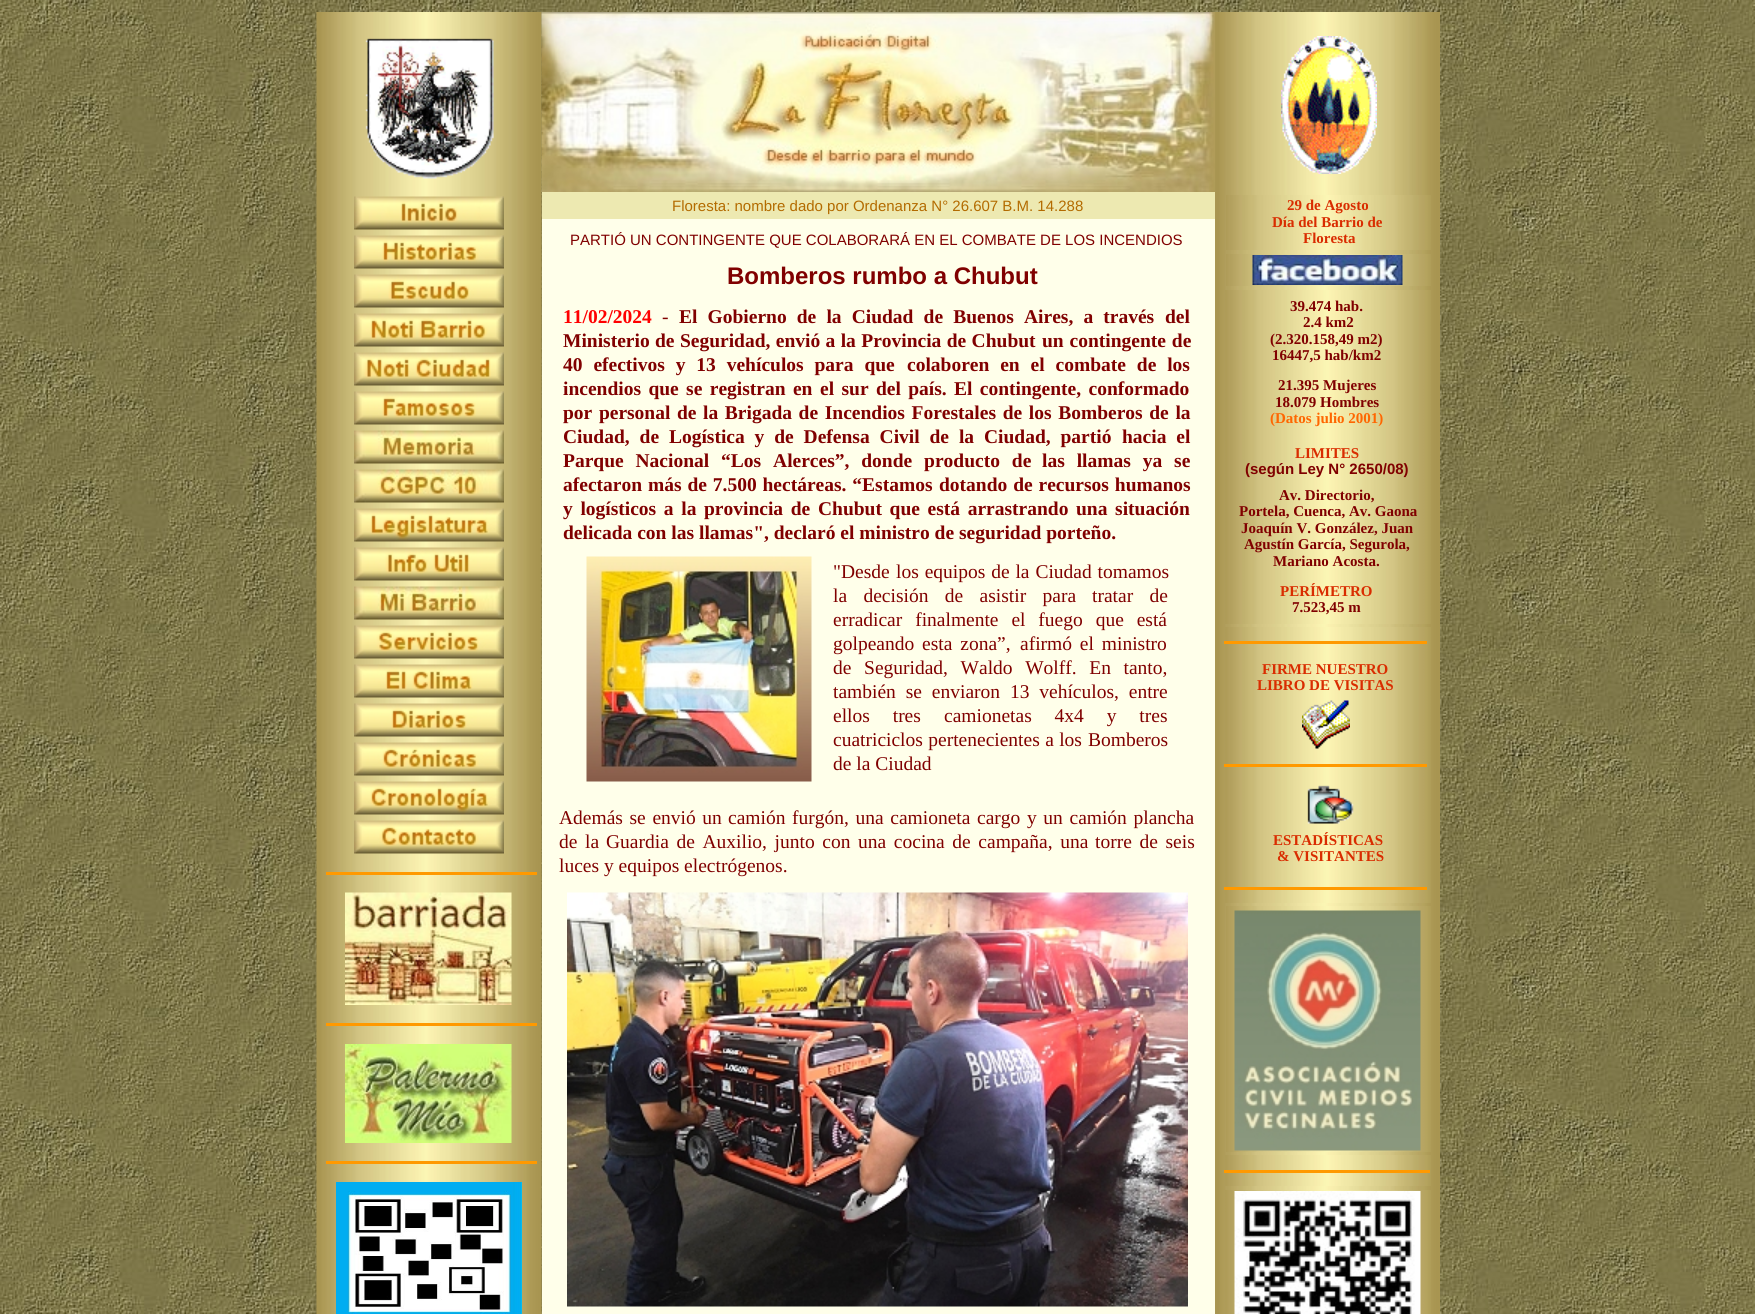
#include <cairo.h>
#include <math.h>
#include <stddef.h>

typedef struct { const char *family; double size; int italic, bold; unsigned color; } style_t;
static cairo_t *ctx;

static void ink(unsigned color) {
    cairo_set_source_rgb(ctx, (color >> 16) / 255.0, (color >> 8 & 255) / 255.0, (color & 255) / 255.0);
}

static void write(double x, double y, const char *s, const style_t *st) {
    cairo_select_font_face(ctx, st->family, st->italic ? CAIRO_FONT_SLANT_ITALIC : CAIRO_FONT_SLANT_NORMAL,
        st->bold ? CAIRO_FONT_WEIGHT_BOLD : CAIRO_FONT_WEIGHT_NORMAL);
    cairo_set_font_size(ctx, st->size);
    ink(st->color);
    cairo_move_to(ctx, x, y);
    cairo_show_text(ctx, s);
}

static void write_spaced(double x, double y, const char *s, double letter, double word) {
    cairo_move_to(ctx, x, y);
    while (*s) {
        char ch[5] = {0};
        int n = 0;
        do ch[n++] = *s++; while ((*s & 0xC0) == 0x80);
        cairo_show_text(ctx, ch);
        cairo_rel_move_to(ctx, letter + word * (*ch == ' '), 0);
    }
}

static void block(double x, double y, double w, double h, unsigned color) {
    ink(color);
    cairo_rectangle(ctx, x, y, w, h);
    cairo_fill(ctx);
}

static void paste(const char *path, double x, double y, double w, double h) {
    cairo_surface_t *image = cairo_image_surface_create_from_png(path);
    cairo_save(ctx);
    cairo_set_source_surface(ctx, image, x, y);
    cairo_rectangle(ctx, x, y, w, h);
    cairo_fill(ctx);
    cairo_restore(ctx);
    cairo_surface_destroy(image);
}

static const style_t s1 = {"Liberation Sans", 15, 0, 0, 0xb36b00};
static const style_t s2 = {"Liberation Sans", 15, 0, 0, 0x800000};
static const style_t s3 = {"Liberation Sans", 24, 0, 1, 0x800000};
static const style_t s4 = {"Liberation Serif", 19.5, 0, 1, 0xff0000};
static const style_t s5 = {"Liberation Serif", 19.5, 0, 0, 0x800000};
static const style_t s6 = {"Liberation Serif", 19.5, 0, 1, 0x800000};
static const style_t s7 = {"Liberation Serif", 15, 0, 1, 0xd92c00};
static const style_t s8 = {"Liberation Serif", 15, 0, 1, 0x800000};
static const style_t s9 = {"Liberation Serif", 15, 0, 1, 0xff6600};
static const style_t s10 = {"Liberation Sans", 15, 0, 1, 0x800000};

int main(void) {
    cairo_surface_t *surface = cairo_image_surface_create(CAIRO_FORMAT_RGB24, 1755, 1314);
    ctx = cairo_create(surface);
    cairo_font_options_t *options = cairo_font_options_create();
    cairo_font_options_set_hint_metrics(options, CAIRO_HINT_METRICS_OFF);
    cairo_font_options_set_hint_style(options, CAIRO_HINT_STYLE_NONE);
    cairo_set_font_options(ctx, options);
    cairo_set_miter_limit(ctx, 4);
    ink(0xffffff);
    cairo_paint(ctx);
    paste("pic1.png", 0, 0, 1755, 1314);
    paste("pic2.png", 316, 12, 226, 180);
    paste("pic3.png", 365, 38, 129, 141);
    paste("pic4.png", 541, 12, 674, 180);
    paste("pic5.png", 1215, 12, 225, 180);
    paste("pic6.png", 1281, 36, 96, 138);
    paste("pic7.png", 316, 192, 226, 1122);
    paste("pic8.png", 354, 196, 150, 34);
    paste("pic9.png", 354, 235, 150, 34);
    paste("pic10.png", 354, 274, 150, 34);
    paste("pic11.png", 354, 313, 150, 34);
    paste("pic12.png", 354, 352, 150, 34);
    paste("pic13.png", 354, 391, 150, 34);
    paste("pic14.png", 354, 430, 150, 34);
    paste("pic15.png", 354, 469, 150, 34);
    paste("pic16.png", 354, 508, 150, 34);
    paste("pic17.png", 354, 547, 150, 34);
    paste("pic18.png", 354, 586, 150, 34);
    paste("pic19.png", 354, 625, 150, 34);
    paste("pic20.png", 354, 664, 150, 34);
    paste("pic21.png", 354, 703, 150, 34);
    paste("pic22.png", 354, 742, 150, 34);
    paste("pic23.png", 354, 781, 150, 34);
    paste("pic24.png", 354, 820, 150, 34);
    block(326, 872, 211, 3, 0xff9900);
    paste("pic25.png", 345, 892, 167, 113);
    block(326, 1023, 211, 3, 0xff9900);
    paste("pic26.png", 345, 1044, 167, 99);
    block(326, 1161, 211, 3, 0xff9900);
    paste("pic27.png", 336, 1182, 186, 132);
    block(542, 192, 673, 27, 0xede9b1);
    write(672, 211, "Floresta: nombre dado por Ordenanza N° 26.607 B.M. 14.288", &s1);
    block(542, 219, 673, 1095, 0xffffea);
    write(570, 245, "PARTIÓ UN CONTINGENTE QUE COLABORARÁ EN EL COMBATE DE LOS INCENDIOS", &s2);
    write(727, 284, "Bomberos rumbo a Chubut", &s3);
    write(563, 323, "11/02/2024", &s4);
    write(662, 323, "-", &s5);
    cairo_select_font_face(ctx, "Liberation Serif", CAIRO_FONT_SLANT_NORMAL, CAIRO_FONT_WEIGHT_BOLD);
    write_spaced(679, 323, "El Gobierno de la Ciudad de Buenos Aires, a través", 0, 5.25);
    write(1165, 323, "del", &s6);
    write_spaced(563, 347, "Ministerio de Seguridad, envió a la Provincia de Chubut", 0, 0.5);
    write_spaced(1042, 347, "un contingente de", 0, 1);
    write_spaced(563, 371, "40 efectivos y 13 vehículos para que", 0, 6);
    write_spaced(907, 371, "colaboren en el combate de los", 0, 6);
    write_spaced(563, 395, "incendios que se registran en", 0, 2.5);
    write_spaced(820, 395, "el sur del país. El contingente, conformado", 0, 2.5);
    write_spaced(563, 419, "por personal de", 0, 1.75);
    write_spaced(703, 419, "la Brigada de Incendios Forestales de los Bomberos de la", 0, 1.75);
    write_spaced(563, 443, "Ciudad, de Logística y de Defensa Civil de la Ciudad, partió", 0, 5);
    write_spaced(1122, 443, "hacia el", 0, 5);
    write_spaced(563, 467, "Parque Nacional “Los Alerces”, donde producto de", 0, 7);
    write_spaced(1042, 467, "las llamas ya se", 0, 7);
    write_spaced(563, 491, "afectaron más de 7.500 hectáreas. “Estamos", 0, 1);
    write_spaced(939, 491, "dotando de recursos humanos", 0, 1);
    write_spaced(563, 515, "y logísticos a la provincia de", 0, 2.75);
    write_spaced(818, 515, "Chubut que está arrastrando una situación", 0, 2.75);
    write(563, 539, "delicada con las llamas\", declaró el ministro de seguridad porteño.", &s6);
    paste("pic28.png", 586, 556, 226, 226);
    write(833, 578, "\"Desde", &s5);
    write_spaced(896, 578, "los equipos de la Ciudad tomamos", 0, 1);
    write_spaced(833, 602, "la decisión de asistir para", 0, 11.5);
    write_spaced(1092, 602, "tratar de", 0, 11.5);
    write_spaced(833, 626, "erradicar finalmente el fuego que está", 0, 8);
    write_spaced(833, 650, "golpeando esta zona”,", 0, 3);
    write_spaced(1020, 650, "afirmó el ministro", 0, 3);
    write_spaced(833, 674, "de Seguridad, Waldo Wolff. En tanto,", 0, 7.75);
    write_spaced(833, 698, "también se enviaron 13 vehículos, entre", 0, 5);
    write_spaced(833, 722, "ellos tres", 0, 18);
    write_spaced(944, 722, "camionetas 4x4 y tres", 0, 18);
    write_spaced(833, 746, "cuatriciclos pertenecientes a los", 0, 0.5);
    write(1088, 746, "Bomberos", &s5);
    write(833, 770, "de la Ciudad", &s5);
    write_spaced(559, 824, "Además se envió u", 0, 1.75);
    write(712, 824, "n", &s5);
    write_spaced(728, 824, "camión furgón, una camioneta cargo y un camión plancha", 0, 1.75);
    write_spaced(559, 848, "de la", 0, 2.75);
    write_spaced(606, 848, "Guardia de Auxilio, junto con una cocina de campaña, una", 0, 2.75);
    write_spaced(1095, 848, "torre de seis", 0, 2.75);
    write(559, 872, "luces y equipos electrógenos.", &s5);
    paste("pic29.png", 567, 892, 621, 415);
    paste("pic30.png", 1215, 192, 225, 1122);
    paste("pic31.png", 1226, 195, 205, 55);
    write(1287, 210, "29 de Agosto", &s7);
    write(1272, 227, "Día del Barrio de", &s7);
    write(1303, 243, "Floresta", &s7);
    paste("pic32.png", 1226, 254, 205, 32);
    paste("pic33.png", 1252, 255, 151, 30);
    paste("pic34.png", 1225, 290, 206, 334);
    write(1290, 311, "39.474 hab.", &s8);
    write(1303, 327, "2.4 km2", &s8);
    write(1270, 344, "(2.320.158,49 m2)", &s8);
    write(1272, 360, "16447,5 hab/km2", &s8);
    write(1278, 390, "21.395 Mujeres", &s8);
    write(1275, 407, "18.079 Hombres", &s8);
    write(1270, 423, "(Datos julio 2001)", &s9);
    write(1295, 458, "LIMITES", &s7);
    write(1245, 474, "(según Ley N° 2650/08)", &s10);
    write(1279, 500, "Av. Directorio,", &s8);
    write(1239, 516, "Portela, Cuenca, Av. Gaona", &s8);
    write(1241, 533, "Joaquín V. González, Juan", &s8);
    write(1244, 549, "Agustín García, Segurola,", &s8);
    write(1273, 566, "Mariano Acosta.", &s8);
    write(1280, 596, "PERÍMETRO", &s7);
    write(1292, 612, "7.523,45 m", &s8);
    paste("pic35.png", 1225, 627, 206, 276);
    block(1224, 641, 203, 3, 0xff9900);
    write(1262, 674, "FIRME NUESTRO", &s7);
    write(1257, 690, "LIBRO DE VISITAS", &s7);
    paste("pic36.png", 1302, 700, 48, 49);
    block(1224, 764, 203, 3, 0xff9900);
    paste("pic37.png", 1307, 785, 47, 39);
    write(1273, 845, "ESTADÍSTICAS", &s7);
    write(1277, 861, "& VISITANTES", &s7);
    block(1224, 887, 203, 3, 0xff9900);
    paste("pic38.png", 1226, 906, 205, 246);
    paste("pic39.png", 1234, 910, 187, 241);
    paste("pic40.png", 1225, 1155, 206, 31);
    block(1224, 1170, 206, 3, 0xff9900);
    paste("pic41.png", 1225, 1190, 206, 124);
    paste("pic42.png", 1234, 1191, 187, 123);
    cairo_surface_write_to_png(surface, "screenshot.png");
    cairo_font_options_destroy(options);
    cairo_destroy(ctx);
    cairo_surface_destroy(surface);
    return 0;
}
